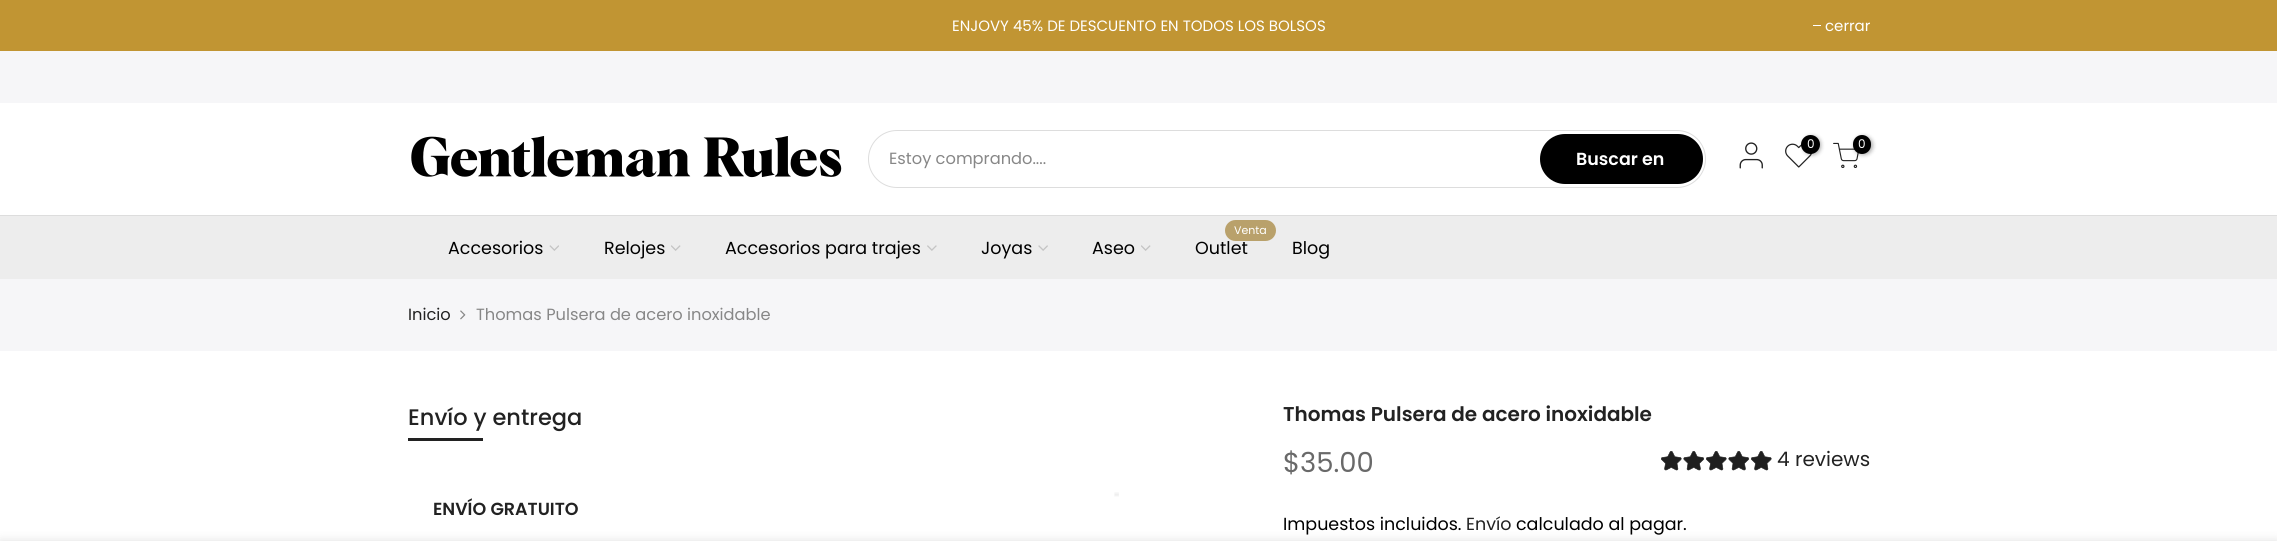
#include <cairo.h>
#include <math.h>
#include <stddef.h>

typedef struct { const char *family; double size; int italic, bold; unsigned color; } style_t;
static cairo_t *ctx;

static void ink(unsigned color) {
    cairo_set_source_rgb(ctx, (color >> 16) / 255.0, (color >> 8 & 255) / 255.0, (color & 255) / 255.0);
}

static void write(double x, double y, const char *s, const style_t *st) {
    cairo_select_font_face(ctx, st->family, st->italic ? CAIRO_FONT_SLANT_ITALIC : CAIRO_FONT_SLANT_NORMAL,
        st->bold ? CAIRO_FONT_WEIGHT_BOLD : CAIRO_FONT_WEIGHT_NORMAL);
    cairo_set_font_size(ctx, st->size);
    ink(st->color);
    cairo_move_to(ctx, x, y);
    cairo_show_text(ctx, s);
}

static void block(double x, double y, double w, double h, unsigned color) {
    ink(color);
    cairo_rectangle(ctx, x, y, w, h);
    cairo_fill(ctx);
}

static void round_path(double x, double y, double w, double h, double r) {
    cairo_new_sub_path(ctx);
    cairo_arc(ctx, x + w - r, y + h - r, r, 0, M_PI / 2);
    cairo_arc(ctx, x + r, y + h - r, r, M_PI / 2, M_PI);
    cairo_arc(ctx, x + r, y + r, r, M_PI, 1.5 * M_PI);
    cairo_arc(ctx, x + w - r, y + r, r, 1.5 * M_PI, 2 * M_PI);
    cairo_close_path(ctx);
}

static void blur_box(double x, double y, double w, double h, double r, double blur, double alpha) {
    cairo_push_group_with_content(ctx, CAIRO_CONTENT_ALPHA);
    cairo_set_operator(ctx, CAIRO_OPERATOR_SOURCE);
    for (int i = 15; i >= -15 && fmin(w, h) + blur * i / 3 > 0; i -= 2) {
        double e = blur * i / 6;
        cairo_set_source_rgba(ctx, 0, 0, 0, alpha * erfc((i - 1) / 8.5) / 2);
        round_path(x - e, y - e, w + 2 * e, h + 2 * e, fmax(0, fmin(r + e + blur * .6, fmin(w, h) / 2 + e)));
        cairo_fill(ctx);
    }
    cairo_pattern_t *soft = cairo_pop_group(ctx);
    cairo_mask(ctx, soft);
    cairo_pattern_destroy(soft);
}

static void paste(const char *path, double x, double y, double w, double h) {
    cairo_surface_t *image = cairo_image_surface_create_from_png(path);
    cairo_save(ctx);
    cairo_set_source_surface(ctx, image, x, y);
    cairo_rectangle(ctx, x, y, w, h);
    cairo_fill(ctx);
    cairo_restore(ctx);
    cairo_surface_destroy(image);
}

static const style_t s1 = {"Poppins", 15, 0, 0, 0xffffff};
static const style_t s2 = {"Poppins", 12, 0, 0, 0xffffff};
static const style_t s3 = {"Poppins", 16.25, 0, 0, 0x878787};
static const style_t s4 = {"Poppins SemiBold", 17.5, 0, 0, 0xffffff};
static const style_t s5 = {"Poppins", 17.5, 0, 0, 0x000000};
static const style_t s6 = {"Poppins", 11, 0, 0, 0xffffff};
static const style_t s7 = {"Poppins", 16.25, 0, 0, 0x222222};
static const style_t s8 = {"Poppins Medium", 22.5, 0, 0, 0x222222};
static const style_t s9 = {"Poppins SemiBold", 17.5, 0, 0, 0x222222};
static const style_t s10 = {"Poppins SemiBold", 20, 0, 0, 0x222222};
static const style_t s11 = {"Poppins", 27.5, 0, 0, 0x696969};
static const style_t s12 = {"Poppins", 20, 0, 0, 0x222222};
static const style_t s13 = {"Poppins", 17.5, 0, 0, 0x222222};

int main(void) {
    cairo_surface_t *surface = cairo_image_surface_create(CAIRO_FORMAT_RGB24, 2277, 541);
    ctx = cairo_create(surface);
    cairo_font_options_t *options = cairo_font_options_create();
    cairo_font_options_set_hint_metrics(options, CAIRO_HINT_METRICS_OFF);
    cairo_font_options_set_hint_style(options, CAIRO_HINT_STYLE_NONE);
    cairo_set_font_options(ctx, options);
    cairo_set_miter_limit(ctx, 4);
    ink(0xffffff);
    cairo_paint(ctx);
    block(0, 0, 2277, 51, 0xc19533);
    write(952, 31, "ENJOVY 45% DE DESCUENTO EN TODOS LOS BOLSOS", &s1);
    block(1813, 25, 8, 1, 0xffffff);
    write(1825, 31, "cerrar", &s1);
    block(0, 51, 2277, 52, 0xf6f6f8);
    paste("pic1.png", 411, 136, 431, 42);
    paste("pic2.png", 1739, 142, 24, 27);
    paste("pic3.png", 1785, 143, 28, 25);
    ink(0x000000);
    blur_box(1803, 136, 18, 19, 9, 2, 0.3);
    ink(0x000000);
    cairo_arc(ctx, 1810.5, 144.5, 9.5, 0, 2 * M_PI);
    cairo_fill(ctx);
    write(1807, 148, "0", &s2);
    paste("pic4.png", 1833, 142, 26, 26);
    ink(0x000000);
    blur_box(1854, 136, 19, 19, 9.5, 2, 0.3);
    ink(0x000000);
    round_path(1853, 135, 18, 19, 9);
    cairo_fill(ctx);
    write(1858, 148, "0", &s2);
    round_path(868.5, 130.5, 837, 57, 28.5);
    ink(0xdddddd);
    cairo_set_line_width(ctx, 1);
    cairo_stroke(ctx);
    write(889, 164, "Estoy comprando....", &s3);
    ink(0x000000);
    round_path(1540, 134, 163, 50, 25);
    cairo_fill(ctx);
    write(1576, 165, "Buscar en", &s4);
    block(0, 216, 2277, 63, 0xededed);
    block(0, 215, 2277, 1, 0xdddddd);
    write(448, 254, "Accesorios", &s5);
    paste("pic5.png", 549, 245, 10, 6);
    write(604, 254, "Relojes", &s5);
    paste("pic6.png", 671, 245, 10, 6);
    write(725, 254, "Accesorios para trajes", &s5);
    paste("pic7.png", 927, 245, 10, 6);
    write(981, 254, "Joyas", &s5);
    paste("pic8.png", 1038, 245, 10, 6);
    write(1092, 254, "Aseo", &s5);
    paste("pic6.png", 1141, 245, 10, 6);
    ink(0xb9a16b);
    round_path(1225, 220, 51, 21, 10.5);
    cairo_fill(ctx);
    write(1234, 234, "Venta", &s6);
    write(1195, 254, "Outlet", &s5);
    write(1292, 254, "Blog", &s5);
    block(0, 279, 2277, 72, 0xf6f6f8);
    write(408, 320, "Inicio", &s7);
    paste("pic9.png", 460, 310, 6, 10);
    write(476, 320, "Thomas Pulsera de acero inoxidable", &s3);
    write(408, 425, "Envío y entrega", &s8);
    block(408, 438, 75, 3, 0x222222);
    write(433, 515, "ENVÍO GRATUITO", &s9);
    paste("pic10.png", 1114, 492, 5, 5);
    write(1283, 421, "Thomas Pulsera de acero inoxidable", &s10);
    write(1283, 472, "$35.00", &s11);
    paste("pic11.png", 1661, 451, 21, 20);
    paste("pic12.png", 1683, 451, 21, 20);
    paste("pic11.png", 1706, 451, 21, 20);
    paste("pic12.png", 1728, 451, 21, 20);
    paste("pic11.png", 1751, 451, 21, 20);
    write(1777, 466, "4 reviews", &s12);
    write(1283, 530, "Impuestos incluidos.", &s5);
    write(1466, 530, "Envío", &s13);
    write(1516, 530, "calculado al pagar.", &s5);
    ink(0x000000);
    blur_box(0, 541, 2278, 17, 0, 5.5, 0.12);
    cairo_surface_write_to_png(surface, "screenshot.png");
    cairo_font_options_destroy(options);
    cairo_destroy(ctx);
    cairo_surface_destroy(surface);
    return 0;
}
